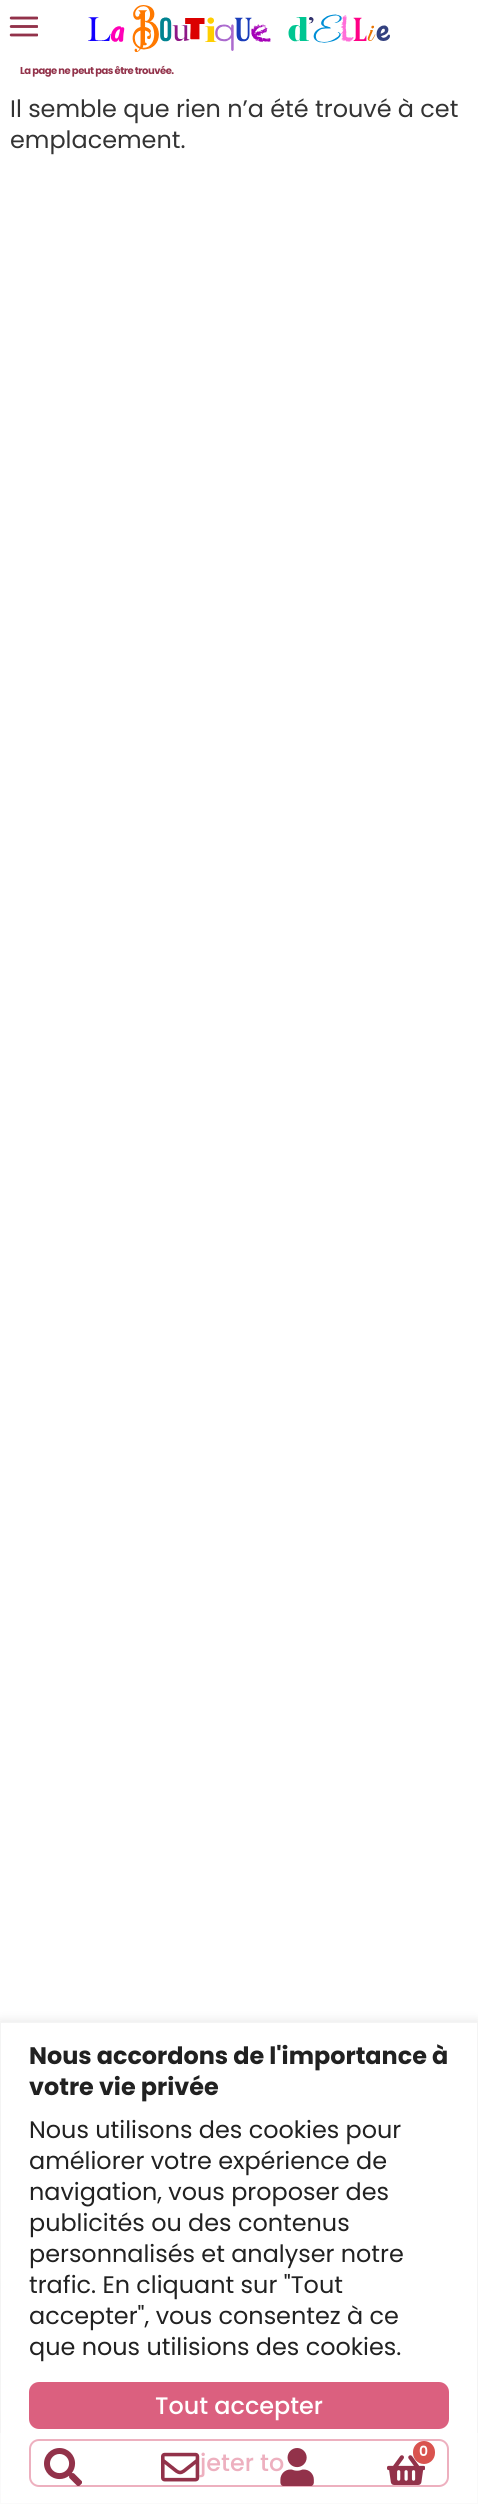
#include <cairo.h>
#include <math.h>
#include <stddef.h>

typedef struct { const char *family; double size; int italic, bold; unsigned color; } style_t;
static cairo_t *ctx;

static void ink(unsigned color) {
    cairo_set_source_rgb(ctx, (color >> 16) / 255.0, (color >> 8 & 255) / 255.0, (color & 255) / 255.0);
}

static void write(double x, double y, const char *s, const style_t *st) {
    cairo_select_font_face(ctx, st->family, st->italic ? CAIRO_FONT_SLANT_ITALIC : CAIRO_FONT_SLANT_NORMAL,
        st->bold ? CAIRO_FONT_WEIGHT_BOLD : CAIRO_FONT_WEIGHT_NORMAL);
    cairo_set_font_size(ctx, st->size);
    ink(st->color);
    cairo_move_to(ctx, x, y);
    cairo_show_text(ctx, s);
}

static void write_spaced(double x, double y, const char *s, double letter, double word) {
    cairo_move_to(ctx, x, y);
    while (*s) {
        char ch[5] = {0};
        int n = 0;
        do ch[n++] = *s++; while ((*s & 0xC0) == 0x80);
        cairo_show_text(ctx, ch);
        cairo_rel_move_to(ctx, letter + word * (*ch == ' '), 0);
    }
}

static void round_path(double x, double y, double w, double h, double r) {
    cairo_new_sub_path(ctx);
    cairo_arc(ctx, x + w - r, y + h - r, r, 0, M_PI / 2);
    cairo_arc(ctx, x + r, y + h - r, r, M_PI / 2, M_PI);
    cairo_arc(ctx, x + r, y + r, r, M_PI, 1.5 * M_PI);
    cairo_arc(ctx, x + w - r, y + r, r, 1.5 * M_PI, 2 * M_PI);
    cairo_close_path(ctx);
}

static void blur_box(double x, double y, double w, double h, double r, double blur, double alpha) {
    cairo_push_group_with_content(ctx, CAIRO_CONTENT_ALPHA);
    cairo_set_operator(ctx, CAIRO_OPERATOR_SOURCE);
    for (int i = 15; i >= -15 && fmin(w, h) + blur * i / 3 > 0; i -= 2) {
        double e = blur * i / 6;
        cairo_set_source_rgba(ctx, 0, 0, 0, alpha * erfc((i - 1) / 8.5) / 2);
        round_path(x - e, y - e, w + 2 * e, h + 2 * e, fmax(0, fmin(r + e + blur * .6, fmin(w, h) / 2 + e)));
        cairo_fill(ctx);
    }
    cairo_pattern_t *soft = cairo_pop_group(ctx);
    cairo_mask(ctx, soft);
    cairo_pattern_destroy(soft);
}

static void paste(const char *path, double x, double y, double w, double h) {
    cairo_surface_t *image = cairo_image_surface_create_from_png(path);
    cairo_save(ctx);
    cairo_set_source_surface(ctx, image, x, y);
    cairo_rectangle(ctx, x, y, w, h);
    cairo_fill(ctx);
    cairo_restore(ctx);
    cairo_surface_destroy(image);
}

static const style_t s1 = {"Poppins", 23.9, 0, 0, 0x333333};
static const style_t s2 = {"Poppins", 23.9, 0, 1, 0x212121};
static const style_t s3 = {"Poppins", 23.9, 0, 0, 0x212121};
static const style_t s4 = {"Poppins Medium", 23.9, 0, 0, 0xffffff};
static const style_t s5 = {"Poppins Medium", 23.9, 0, 0, 0xdb607f};
static const style_t s6 = {"Poppins SemiBold", 14, 0, 0, 0xffffff};

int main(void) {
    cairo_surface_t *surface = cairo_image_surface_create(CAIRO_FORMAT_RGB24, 478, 2504);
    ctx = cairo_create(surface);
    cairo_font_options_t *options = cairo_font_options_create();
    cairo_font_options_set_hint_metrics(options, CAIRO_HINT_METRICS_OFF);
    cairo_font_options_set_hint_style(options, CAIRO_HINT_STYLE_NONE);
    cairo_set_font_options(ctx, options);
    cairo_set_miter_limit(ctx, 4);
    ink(0xffffff);
    cairo_paint(ctx);
    paste("pic1.png", 9, 16, 29, 21);
    paste("pic2.png", 88, 5, 302, 47);
    cairo_select_font_face(ctx, "Poppins", CAIRO_FONT_SLANT_NORMAL, CAIRO_FONT_WEIGHT_BOLD);
    cairo_set_font_size(ctx, 10);
    ink(0x92324a);
    write_spaced(20, 74, "La page ne peut pas être trouvée.", -0.5, 0);
    write(10, 117, "Il semble que rien n’a été trouvé à cet", &s1);
    write(10, 148, "emplacement.", &s1);
    ink(0xacabab);
    blur_box(0, 2021, 478, 482, 0, 5, 0.3);
    ink(0xffffff);
    cairo_rectangle(ctx, 0.5, 2022.5, 477, 481);
    cairo_fill_preserve(ctx);
    ink(0xf4f4f4);
    cairo_set_line_width(ctx, 1);
    cairo_stroke(ctx);
    write(29, 2064, "Nous accordons de l'importance à", &s2);
    write(29, 2095, "votre vie privée", &s2);
    write(29, 2138, "Nous utilisons des cookies pour", &s3);
    write(29, 2169, "améliorer votre expérience de", &s3);
    write(29, 2200, "navigation, vous proposer des", &s3);
    write(29, 2231, "publicités ou des contenus", &s3);
    write(29, 2262, "personnalisés et analyser notre", &s3);
    write(29, 2293, "trafic. En cliquant sur \"Tout", &s3);
    write(29, 2324, "accepter\", vous consentez à ce", &s3);
    write(29, 2355, "que nous utilisions des cookies.", &s3);
    ink(0xdb607f);
    round_path(30, 2383, 418, 45, 9);
    cairo_fill_preserve(ctx);
    cairo_set_line_width(ctx, 2);
    cairo_stroke(ctx);
    write(155, 2414, "Tout accepter", &s4);
    round_path(30, 2440, 418, 46, 9);
    ink(0xdb607f);
    cairo_stroke(ctx);
    write(200, 2471, "jeter to", &s5);
    cairo_set_source_rgba(ctx, 1, 1, 1, 0.5);
    cairo_rectangle(ctx, 0, 2433, 478, 71);
    cairo_fill(ctx);
    paste("pic3.png", 44, 2448, 38, 38);
    paste("pic4.png", 161, 2452, 39, 30);
    paste("pic5.png", 280, 2448, 34, 38);
    paste("pic6.png", 387, 2455, 38, 30);
    ink(0xd9534f);
    round_path(413, 2441, 22, 23, 11);
    cairo_fill(ctx);
    write(419, 2456, "0", &s6);
    cairo_surface_write_to_png(surface, "screenshot.png");
    cairo_font_options_destroy(options);
    cairo_destroy(ctx);
    cairo_surface_destroy(surface);
    return 0;
}
